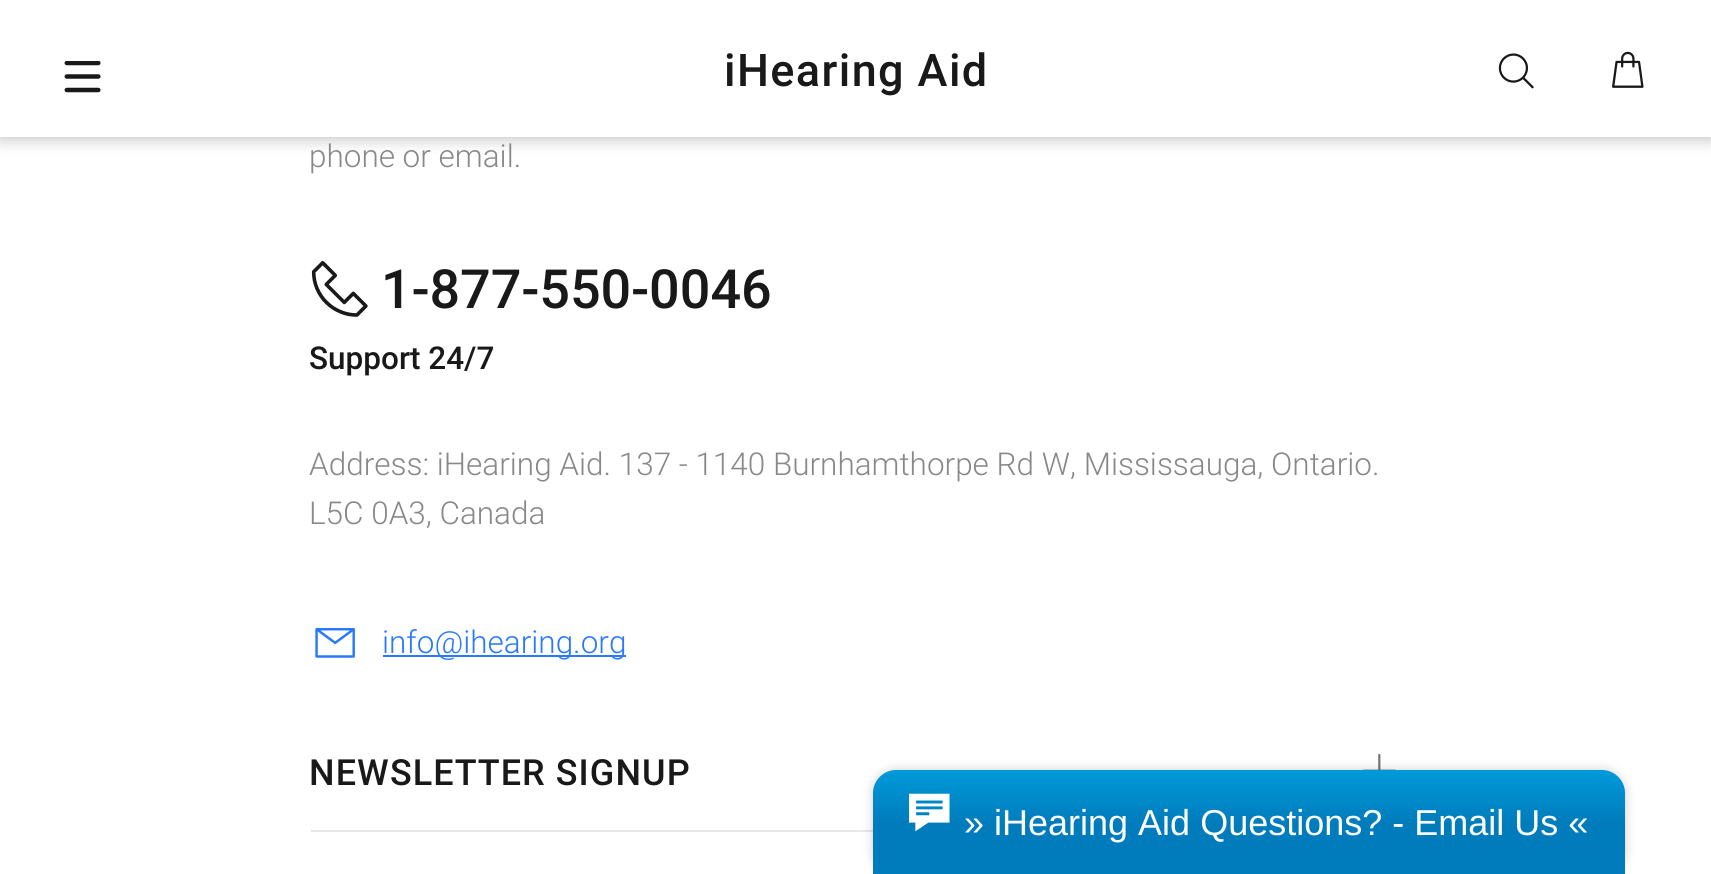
#include <cairo.h>
#include <math.h>
#include <stddef.h>

typedef struct { const char *family; double size; int italic, bold; unsigned color; } style_t;
static cairo_t *ctx;

static void ink(unsigned color) {
    cairo_set_source_rgb(ctx, (color >> 16) / 255.0, (color >> 8 & 255) / 255.0, (color & 255) / 255.0);
}

static void write(double x, double y, const char *s, const style_t *st) {
    cairo_select_font_face(ctx, st->family, st->italic ? CAIRO_FONT_SLANT_ITALIC : CAIRO_FONT_SLANT_NORMAL,
        st->bold ? CAIRO_FONT_WEIGHT_BOLD : CAIRO_FONT_WEIGHT_NORMAL);
    cairo_set_font_size(ctx, st->size);
    ink(st->color);
    cairo_move_to(ctx, x, y);
    cairo_show_text(ctx, s);
}

static void write_spaced(double x, double y, const char *s, double letter, double word) {
    cairo_move_to(ctx, x, y);
    while (*s) {
        char ch[5] = {0};
        int n = 0;
        do ch[n++] = *s++; while ((*s & 0xC0) == 0x80);
        cairo_show_text(ctx, ch);
        cairo_rel_move_to(ctx, letter + word * (*ch == ' '), 0);
    }
}

static void block(double x, double y, double w, double h, unsigned color) {
    ink(color);
    cairo_rectangle(ctx, x, y, w, h);
    cairo_fill(ctx);
}

static void round_path(double x, double y, double w, double h, double r) {
    cairo_new_sub_path(ctx);
    cairo_arc(ctx, x + w - r, y + h - r, r, 0, M_PI / 2);
    cairo_arc(ctx, x + r, y + h - r, r, M_PI / 2, M_PI);
    cairo_arc(ctx, x + r, y + r, r, M_PI, 1.5 * M_PI);
    cairo_arc(ctx, x + w - r, y + r, r, 1.5 * M_PI, 2 * M_PI);
    cairo_close_path(ctx);
}

static void blur_box(double x, double y, double w, double h, double r, double blur, double alpha) {
    cairo_push_group_with_content(ctx, CAIRO_CONTENT_ALPHA);
    cairo_set_operator(ctx, CAIRO_OPERATOR_SOURCE);
    for (int i = 15; i >= -15 && fmin(w, h) + blur * i / 3 > 0; i -= 2) {
        double e = blur * i / 6;
        cairo_set_source_rgba(ctx, 0, 0, 0, alpha * erfc((i - 1) / 8.5) / 2);
        round_path(x - e, y - e, w + 2 * e, h + 2 * e, fmax(0, fmin(r + e + blur * .6, fmin(w, h) / 2 + e)));
        cairo_fill(ctx);
    }
    cairo_pattern_t *soft = cairo_pop_group(ctx);
    cairo_mask(ctx, soft);
    cairo_pattern_destroy(soft);
}

static void paste(const char *path, double x, double y, double w, double h) {
    cairo_surface_t *image = cairo_image_surface_create_from_png(path);
    cairo_save(ctx);
    cairo_set_source_surface(ctx, image, x, y);
    cairo_rectangle(ctx, x, y, w, h);
    cairo_fill(ctx);
    cairo_restore(ctx);
    cairo_surface_destroy(image);
}

static const style_t s1 = {"Roboto Light", 31.5, 0, 0, 0x888888};
static const style_t s2 = {"Roboto Medium", 54, 0, 0, 0x191919};
static const style_t s3 = {"Roboto Medium", 31.5, 0, 0, 0x191919};
static const style_t s4 = {"Roboto Light", 31.5, 0, 0, 0x2879fe};
static const style_t s5 = {"Liberation Sans", 36, 0, 0, 0xffffff};

int main(void) {
    cairo_surface_t *surface = cairo_image_surface_create(CAIRO_FORMAT_RGB24, 1711, 874);
    ctx = cairo_create(surface);
    cairo_font_options_t *options = cairo_font_options_create();
    cairo_font_options_set_hint_metrics(options, CAIRO_HINT_METRICS_OFF);
    cairo_font_options_set_hint_style(options, CAIRO_HINT_STYLE_NONE);
    cairo_set_font_options(ctx, options);
    cairo_set_miter_limit(ctx, 4);
    cairo_pattern_t *gradient;
    ink(0xffffff);
    cairo_paint(ctx);
    ink(0x000000);
    blur_box(0, 0, 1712, 137, 0, 9, 0.3);
    block(0, 0, 1711, 137, 0xffffff);
    paste("pic1.png", 64, 61, 37, 32);
    cairo_select_font_face(ctx, "Roboto Medium", CAIRO_FONT_SLANT_NORMAL, CAIRO_FONT_WEIGHT_NORMAL);
    cairo_set_font_size(ctx, 45);
    ink(0x191919);
    write_spaced(724, 86, "iHearing Aid", 1.4, 0);
    paste("pic2.png", 1498, 53, 36, 36);
    paste("pic3.png", 1612, 51, 32, 37);
    write(309, 167, "phone or email.", &s1);
    paste("pic4.png", 311, 261, 57, 56);
    write(381, 308, "1-877-550-0046", &s2);
    write(309, 369, "Support 24/7", &s3);
    write(309, 475, "Address: iHearing Aid. 137 - 1140 Burnhamthorpe Rd W, Mississauga, Ontario.", &s1);
    write(309, 524, "L5C 0A3, Canada", &s1);
    paste("pic5.png", 315, 628, 40, 30);
    block(383, 655, 243, 2, 0x2879fe);
    write(382, 653, "info@ihearing.org", &s4);
    block(311, 830, 562, 2, 0xe9e7e7);
    cairo_select_font_face(ctx, "Roboto Medium", CAIRO_FONT_SLANT_NORMAL, CAIRO_FONT_WEIGHT_NORMAL);
    cairo_set_font_size(ctx, 36);
    ink(0x191919);
    write_spaced(309, 785, "NEWSLETTER SIGNUP", 1.1, 0);
    paste("pic6.png", 1362, 753, 34, 17);
    ink(0x000000);
    blur_box(873, 770, 752, 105, 23, 5.5, 0.2);
    gradient = cairo_pattern_create_linear(1249, 770, 1249, 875);
    cairo_pattern_add_color_stop_rgba(gradient, 0, 0, 0.604, 0.855, 1);
    cairo_pattern_add_color_stop_rgba(gradient, 0.5, 0, 0.486, 0.737, 1);
    cairo_set_source(ctx, gradient);
    cairo_pattern_destroy(gradient);
    cairo_new_path(ctx);
    cairo_move_to(ctx, 896, 770);
    cairo_line_to(ctx, 1602, 770);
    cairo_curve_to(ctx, 1614.5, 770, 1625, 780.5, 1625, 793);
    cairo_line_to(ctx, 1625, 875);
    cairo_line_to(ctx, 873, 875);
    cairo_line_to(ctx, 873, 793);
    cairo_curve_to(ctx, 873, 780.5, 883.5, 770, 896, 770);
    cairo_close_path(ctx);
    cairo_fill(ctx);
    paste("pic7.png", 909, 793, 41, 39);
    write(964, 835, "» iHearing Aid Questions? - Email Us «", &s5);
    cairo_surface_write_to_png(surface, "screenshot.png");
    cairo_font_options_destroy(options);
    cairo_destroy(ctx);
    cairo_surface_destroy(surface);
    return 0;
}
